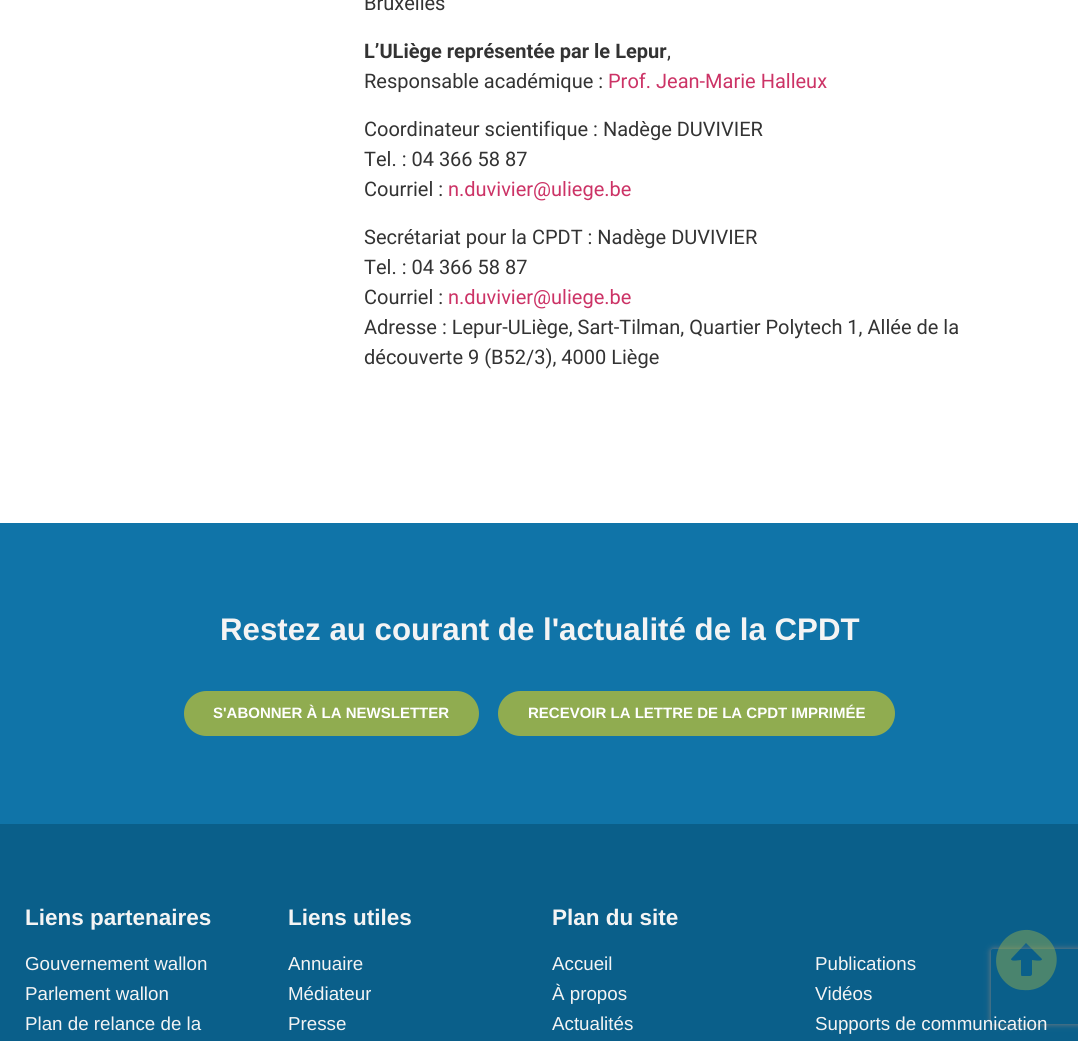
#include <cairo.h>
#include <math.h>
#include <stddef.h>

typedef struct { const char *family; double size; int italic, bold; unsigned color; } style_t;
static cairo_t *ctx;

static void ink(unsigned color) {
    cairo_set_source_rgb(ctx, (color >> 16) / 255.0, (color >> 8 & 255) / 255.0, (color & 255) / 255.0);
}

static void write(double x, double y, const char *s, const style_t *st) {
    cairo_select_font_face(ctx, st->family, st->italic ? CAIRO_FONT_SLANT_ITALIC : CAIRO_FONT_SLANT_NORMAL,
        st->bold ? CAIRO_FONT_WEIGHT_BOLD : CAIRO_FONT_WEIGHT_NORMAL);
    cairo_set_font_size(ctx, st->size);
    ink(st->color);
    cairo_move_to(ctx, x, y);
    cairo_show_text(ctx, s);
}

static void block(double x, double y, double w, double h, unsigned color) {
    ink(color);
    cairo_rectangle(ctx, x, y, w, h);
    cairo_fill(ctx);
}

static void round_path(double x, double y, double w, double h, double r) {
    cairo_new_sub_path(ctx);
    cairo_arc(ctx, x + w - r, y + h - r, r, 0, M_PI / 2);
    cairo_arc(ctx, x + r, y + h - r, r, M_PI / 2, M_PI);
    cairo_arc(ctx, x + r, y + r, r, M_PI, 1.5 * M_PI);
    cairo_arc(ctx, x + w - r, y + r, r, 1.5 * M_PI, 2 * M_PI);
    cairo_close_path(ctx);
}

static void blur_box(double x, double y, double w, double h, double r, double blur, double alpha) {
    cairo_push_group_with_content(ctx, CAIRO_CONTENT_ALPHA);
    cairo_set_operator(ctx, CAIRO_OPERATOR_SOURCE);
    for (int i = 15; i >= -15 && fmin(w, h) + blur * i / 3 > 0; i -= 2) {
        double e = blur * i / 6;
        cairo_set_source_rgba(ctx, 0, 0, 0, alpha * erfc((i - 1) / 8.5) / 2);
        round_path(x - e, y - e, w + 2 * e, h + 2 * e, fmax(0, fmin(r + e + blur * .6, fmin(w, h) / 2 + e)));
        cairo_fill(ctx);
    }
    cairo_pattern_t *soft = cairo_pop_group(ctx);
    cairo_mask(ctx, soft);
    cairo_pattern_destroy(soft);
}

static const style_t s1 = {"Roboto", 20, 0, 0, 0x333333};
static const style_t s2 = {"Roboto", 20, 0, 1, 0x333333};
static const style_t s3 = {"Roboto", 20, 0, 0, 0xcc3366};
static const style_t s4 = {"Liberation Sans", 31.25, 0, 1, 0xf4f4f4};
static const style_t s5 = {"Liberation Sans", 15, 0, 1, 0xffffff};
static const style_t s6 = {"Liberation Sans", 22.5, 0, 1, 0xf4f4f4};
static const style_t s7 = {"Liberation Sans", 18.75, 0, 0, 0xf4f4f4};

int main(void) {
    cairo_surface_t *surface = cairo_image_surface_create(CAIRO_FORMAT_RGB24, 1078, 1041);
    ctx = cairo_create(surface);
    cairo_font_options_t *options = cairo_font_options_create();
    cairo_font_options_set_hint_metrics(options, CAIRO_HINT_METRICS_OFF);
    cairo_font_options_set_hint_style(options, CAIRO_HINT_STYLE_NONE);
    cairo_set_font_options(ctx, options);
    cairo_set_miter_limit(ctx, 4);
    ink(0xffffff);
    cairo_paint(ctx);
    write(364, 10, "Bruxelles", &s1);
    write(364, 58, "L’ULiège représentée par le Lepur", &s2);
    write(667, 58, ",", &s1);
    write(364, 88, "Responsable académique :", &s1);
    write(608, 88, "Prof. Jean-Marie Halleux", &s3);
    write(364, 136, "Coordinateur scientifique : Nadège DUVIVIER", &s1);
    write(364, 166, "Tel. : 04 366 58 87", &s1);
    write(364, 196, "Courriel :", &s1);
    write(448, 196, "n.duvivier@uliege.be", &s3);
    write(364, 244, "Secrétariat pour la CPDT : Nadège DUVIVIER", &s1);
    write(364, 274, "Tel. : 04 366 58 87", &s1);
    write(364, 304, "Courriel :", &s1);
    write(448, 304, "n.duvivier@uliege.be", &s3);
    write(364, 334, "Adresse : Lepur-ULiège, Sart-Tilman, Quartier Polytech 1, Allée de la", &s1);
    write(364, 364, "découverte 9 (B52/3), 4000 Liège", &s1);
    block(0, 824, 1078, 217, 0x0a5f8a);
    cairo_save(ctx);
    cairo_set_fill_rule(ctx, CAIRO_FILL_RULE_EVEN_ODD);
    cairo_new_path(ctx);
    cairo_move_to(ctx, 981, 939);
    cairo_line_to(ctx, 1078, 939);
    cairo_line_to(ctx, 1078, 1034);
    cairo_line_to(ctx, 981, 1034);
    cairo_close_path(ctx);
    cairo_move_to(ctx, 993.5, 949);
    cairo_line_to(ctx, 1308.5, 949);
    cairo_curve_to(ctx, 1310, 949, 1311, 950, 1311, 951.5);
    cairo_line_to(ctx, 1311, 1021.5);
    cairo_curve_to(ctx, 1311, 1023, 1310, 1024, 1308.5, 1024);
    cairo_line_to(ctx, 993.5, 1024);
    cairo_curve_to(ctx, 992, 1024, 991, 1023, 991, 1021.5);
    cairo_line_to(ctx, 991, 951.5);
    cairo_curve_to(ctx, 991, 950, 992, 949, 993.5, 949);
    cairo_close_path(ctx);
    cairo_clip(ctx);
    ink(0x808080);
    blur_box(991, 949, 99, 75, 2.5, 3, 1);
    cairo_restore(ctx);
    block(0, 523, 1078, 301, 0x1074a8);
    write(220, 640, "Restez au courant de l'actualité de la CPDT", &s4);
    ink(0x90ac50);
    round_path(184, 691, 295, 45, 22.5);
    cairo_fill(ctx);
    write(213, 718, "S'ABONNER À LA NEWSLETTER", &s5);
    ink(0x90ac50);
    round_path(498, 691, 397, 45, 22.5);
    cairo_fill(ctx);
    write(528, 718, "RECEVOIR LA LETTRE DE LA CPDT IMPRIMÉE", &s5);
    cairo_set_source_rgba(ctx, 0.565, 0.675, 0.314, 0.48);
    cairo_new_path(ctx);
    cairo_move_to(ctx, 1005, 982);
    cairo_curve_to(ctx, 985, 962, 1001, 928, 1029, 930);
    cairo_curve_to(ctx, 1036, 931, 1043, 934, 1048, 939);
    cairo_curve_to(ctx, 1068, 959, 1051, 993, 1023, 990);
    cairo_curve_to(ctx, 1016, 990, 1010, 987, 1005, 982);
    cairo_close_path(ctx);
    cairo_move_to(ctx, 1032, 974);
    cairo_line_to(ctx, 1032, 960);
    cairo_curve_to(ctx, 1033, 960, 1042, 962, 1042, 959);
    cairo_line_to(ctx, 1026, 943);
    cairo_line_to(ctx, 1011, 959);
    cairo_curve_to(ctx, 1011, 962, 1019, 960, 1021, 960);
    cairo_line_to(ctx, 1021, 974);
    cairo_curve_to(ctx, 1021, 975, 1021, 976, 1022, 976);
    cairo_line_to(ctx, 1030, 976);
    cairo_curve_to(ctx, 1031, 976, 1032, 975, 1032, 974);
    cairo_close_path(ctx);
    cairo_fill(ctx);
    write(25, 925, "Liens partenaires", &s6);
    write(25, 970, "Gouvernement wallon", &s7);
    write(25, 1000, "Parlement wallon", &s7);
    write(25, 1030, "Plan de relance de la", &s7);
    write(288, 925, "Liens utiles", &s6);
    write(288, 970, "Annuaire", &s7);
    write(288, 1000, "Médiateur", &s7);
    write(288, 1030, "Presse", &s7);
    write(552, 925, "Plan du site", &s6);
    write(552, 970, "Accueil", &s7);
    write(552, 1000, "À propos", &s7);
    write(552, 1030, "Actualités", &s7);
    write(815, 970, "Publications", &s7);
    write(815, 1000, "Vidéos", &s7);
    write(815, 1030, "Supports de communication", &s7);
    cairo_surface_write_to_png(surface, "screenshot.png");
    cairo_font_options_destroy(options);
    cairo_destroy(ctx);
    cairo_surface_destroy(surface);
    return 0;
}
